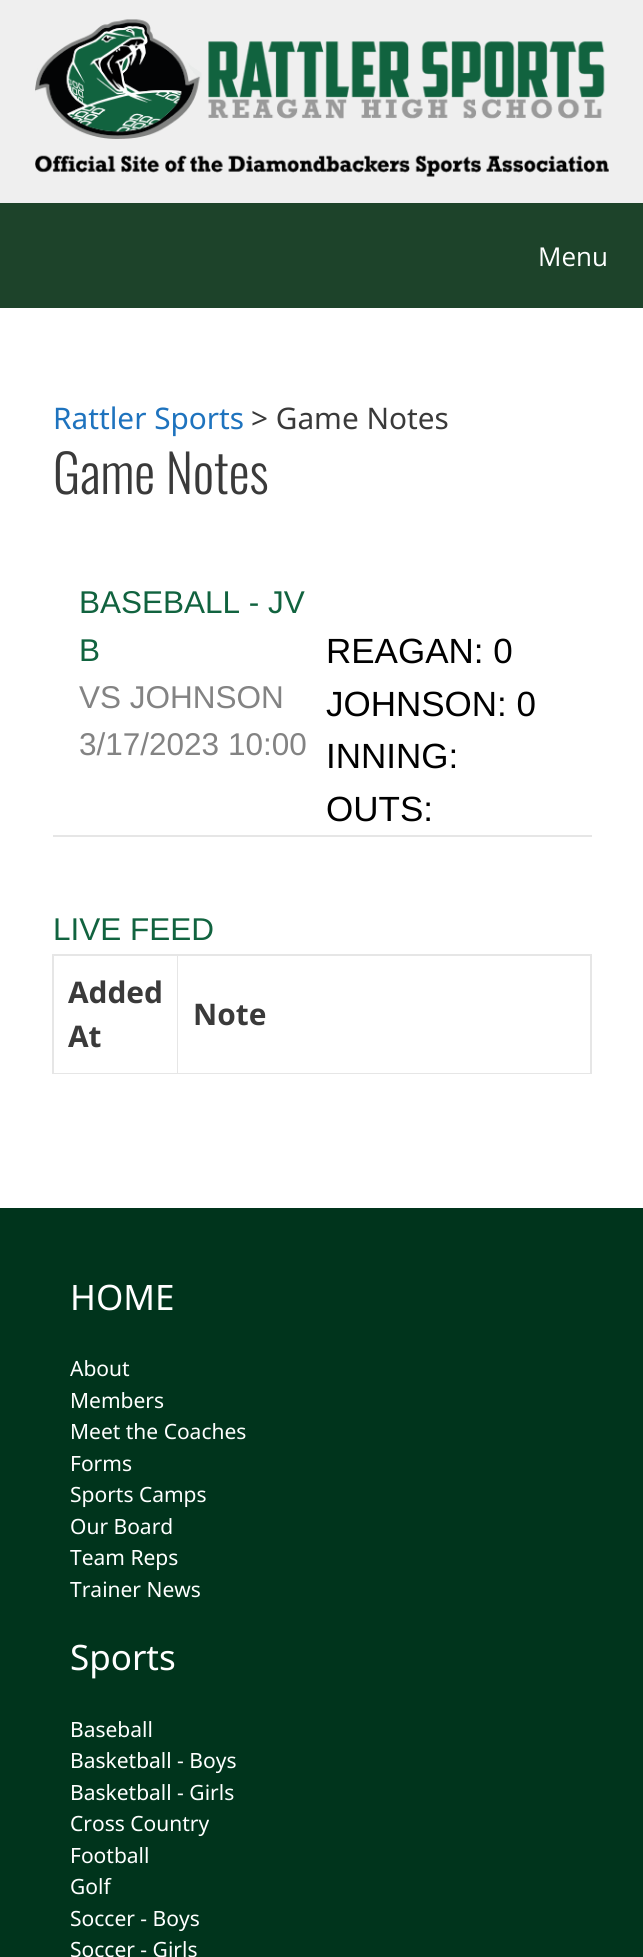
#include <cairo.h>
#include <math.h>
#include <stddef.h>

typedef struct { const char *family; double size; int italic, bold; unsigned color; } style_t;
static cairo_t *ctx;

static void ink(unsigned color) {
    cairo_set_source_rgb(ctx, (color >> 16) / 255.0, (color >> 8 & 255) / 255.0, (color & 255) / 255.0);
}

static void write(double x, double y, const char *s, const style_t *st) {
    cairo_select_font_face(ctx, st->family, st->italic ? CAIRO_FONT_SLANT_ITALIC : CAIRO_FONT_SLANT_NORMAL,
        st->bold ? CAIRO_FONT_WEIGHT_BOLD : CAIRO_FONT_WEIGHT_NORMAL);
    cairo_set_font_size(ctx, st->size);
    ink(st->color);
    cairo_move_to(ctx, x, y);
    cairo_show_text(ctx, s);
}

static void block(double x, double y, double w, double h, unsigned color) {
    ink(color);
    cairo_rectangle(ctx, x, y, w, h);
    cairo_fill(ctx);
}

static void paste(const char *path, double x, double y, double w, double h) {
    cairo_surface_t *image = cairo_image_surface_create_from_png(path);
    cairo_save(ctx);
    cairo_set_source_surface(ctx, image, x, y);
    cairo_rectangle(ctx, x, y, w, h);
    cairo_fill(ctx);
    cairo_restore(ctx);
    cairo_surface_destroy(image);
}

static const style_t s1 = {"Open Sans", 26, 0, 0, 0xffffff};
static const style_t s2 = {"Noto Sans", 29.75, 0, 0, 0x1e73be};
static const style_t s3 = {"Noto Sans", 29.75, 0, 0, 0x3a3a3a};
static const style_t s4 = {"Oswald Light", 52.5, 0, 0, 0x3a3a3a};
static const style_t s5 = {"Liberation Sans", 31.5, 0, 0, 0x11633f};
static const style_t s6 = {"Liberation Sans", 31.5, 0, 0, 0x838383};
static const style_t s7 = {"Liberation Sans", 35, 0, 0, 0x000000};
static const style_t s8 = {"Noto Sans", 29.75, 0, 1, 0x3a3a3a};
static const style_t s9 = {"Noto Sans", 35, 0, 0, 0xffffff};
static const style_t s10 = {"Noto Sans", 21, 0, 0, 0xffffff};

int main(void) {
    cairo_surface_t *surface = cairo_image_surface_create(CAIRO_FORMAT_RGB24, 643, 1957);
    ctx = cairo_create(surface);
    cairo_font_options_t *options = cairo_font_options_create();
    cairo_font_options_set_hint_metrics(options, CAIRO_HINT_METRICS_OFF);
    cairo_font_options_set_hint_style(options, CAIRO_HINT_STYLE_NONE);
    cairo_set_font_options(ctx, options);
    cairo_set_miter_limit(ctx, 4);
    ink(0xffffff);
    cairo_paint(ctx);
    block(0, 0, 643, 203, 0xefefef);
    paste("pic1.png", 35, 19, 570, 120);
    paste("pic2.png", 35, 155, 574, 22);
    block(0, 203, 643, 105, 0x1d432a);
    write(538, 266, "Menu", &s1);
    write(53, 429, "Rattler Sports", &s2);
    write(251, 429, "> Game Notes", &s3);
    write(53, 494, "Game Notes", &s4);
    write(79, 613, "BASEBALL - JV", &s5);
    write(79, 661, "B", &s5);
    write(79, 708, "VS JOHNSON", &s6);
    write(79, 755, "3/17/2023 10:00", &s6);
    write(326, 663, "REAGAN: 0", &s7);
    write(326, 716, "JOHNSON: 0", &s7);
    write(326, 768, "INNING:", &s7);
    write(326, 821, "OUTS:", &s7);
    block(53, 835, 539, 2, 0xe6e6e6);
    write(53, 940, "LIVE FEED", &s5);
    ink(0xe6e6e6);
    cairo_new_path(ctx);
    cairo_move_to(ctx, 52, 954);
    cairo_line_to(ctx, 592, 954);
    cairo_line_to(ctx, 592, 956);
    cairo_line_to(ctx, 54, 956);
    cairo_close_path(ctx);
    cairo_fill(ctx);
    cairo_set_source_rgba(ctx, 0, 0, 0, 0.1);
    cairo_new_path(ctx);
    cairo_move_to(ctx, 52, 1074);
    cairo_line_to(ctx, 52, 954);
    cairo_line_to(ctx, 54, 956);
    cairo_line_to(ctx, 54, 1074);
    cairo_close_path(ctx);
    cairo_fill(ctx);
    ink(0xe6e6e6);
    cairo_new_path(ctx);
    cairo_move_to(ctx, 178, 956);
    cairo_line_to(ctx, 178, 1074);
    cairo_line_to(ctx, 177, 1073);
    cairo_line_to(ctx, 177, 956);
    cairo_close_path(ctx);
    cairo_fill(ctx);
    cairo_set_source_rgba(ctx, 0, 0, 0, 0.1);
    cairo_new_path(ctx);
    cairo_move_to(ctx, 178, 1074);
    cairo_line_to(ctx, 54, 1074);
    cairo_line_to(ctx, 54, 1073);
    cairo_line_to(ctx, 177, 1073);
    cairo_close_path(ctx);
    cairo_fill(ctx);
    write(68, 1003, "Added", &s8);
    write(68, 1047, "At", &s8);
    ink(0xe6e6e6);
    cairo_new_path(ctx);
    cairo_move_to(ctx, 592, 956);
    cairo_line_to(ctx, 592, 1074);
    cairo_line_to(ctx, 590, 1073);
    cairo_line_to(ctx, 590, 956);
    cairo_close_path(ctx);
    cairo_fill(ctx);
    cairo_set_source_rgba(ctx, 0, 0, 0, 0.1);
    cairo_new_path(ctx);
    cairo_move_to(ctx, 592, 1074);
    cairo_line_to(ctx, 178, 1074);
    cairo_line_to(ctx, 178, 1073);
    cairo_line_to(ctx, 590, 1073);
    cairo_close_path(ctx);
    cairo_fill(ctx);
    write(193, 1025, "Note", &s8);
    block(0, 1208, 643, 749, 0x00341c);
    write(70, 1310, "HOME", &s9);
    write(70, 1376, "About", &s10);
    write(70, 1408, "Members", &s10);
    write(70, 1439, "Meet the Coaches", &s10);
    write(70, 1471, "Forms", &s10);
    write(70, 1502, "Sports Camps", &s10);
    write(70, 1534, "Our Board", &s10);
    write(70, 1565, "Team Reps", &s10);
    write(70, 1597, "Trainer News", &s10);
    write(70, 1670, "Sports", &s9);
    write(70, 1737, "Baseball", &s10);
    write(70, 1768, "Basketball - Boys", &s10);
    write(70, 1800, "Basketball - Girls", &s10);
    write(70, 1831, "Cross Country", &s10);
    write(70, 1863, "Football", &s10);
    write(70, 1894, "Golf", &s10);
    write(70, 1926, "Soccer - Boys", &s10);
    write(70, 1957, "Soccer - Girls", &s10);
    cairo_surface_write_to_png(surface, "screenshot.png");
    cairo_font_options_destroy(options);
    cairo_destroy(ctx);
    cairo_surface_destroy(surface);
    return 0;
}
